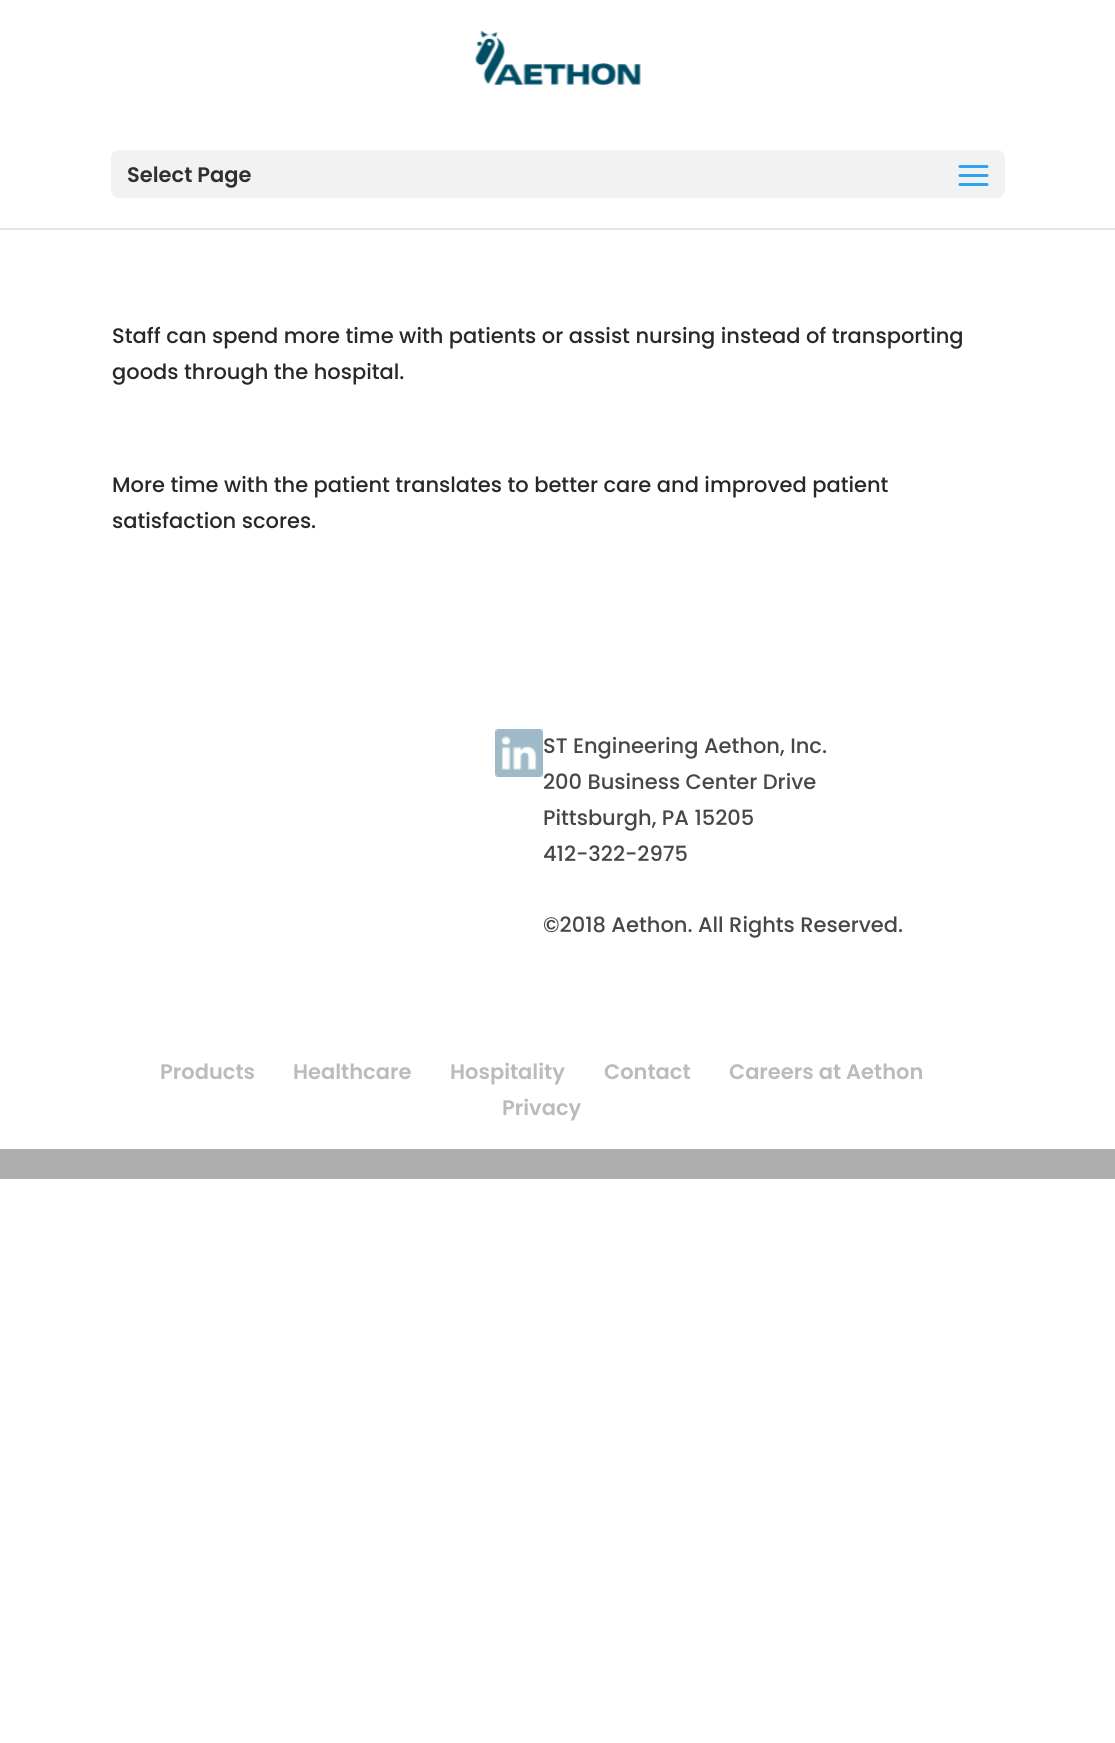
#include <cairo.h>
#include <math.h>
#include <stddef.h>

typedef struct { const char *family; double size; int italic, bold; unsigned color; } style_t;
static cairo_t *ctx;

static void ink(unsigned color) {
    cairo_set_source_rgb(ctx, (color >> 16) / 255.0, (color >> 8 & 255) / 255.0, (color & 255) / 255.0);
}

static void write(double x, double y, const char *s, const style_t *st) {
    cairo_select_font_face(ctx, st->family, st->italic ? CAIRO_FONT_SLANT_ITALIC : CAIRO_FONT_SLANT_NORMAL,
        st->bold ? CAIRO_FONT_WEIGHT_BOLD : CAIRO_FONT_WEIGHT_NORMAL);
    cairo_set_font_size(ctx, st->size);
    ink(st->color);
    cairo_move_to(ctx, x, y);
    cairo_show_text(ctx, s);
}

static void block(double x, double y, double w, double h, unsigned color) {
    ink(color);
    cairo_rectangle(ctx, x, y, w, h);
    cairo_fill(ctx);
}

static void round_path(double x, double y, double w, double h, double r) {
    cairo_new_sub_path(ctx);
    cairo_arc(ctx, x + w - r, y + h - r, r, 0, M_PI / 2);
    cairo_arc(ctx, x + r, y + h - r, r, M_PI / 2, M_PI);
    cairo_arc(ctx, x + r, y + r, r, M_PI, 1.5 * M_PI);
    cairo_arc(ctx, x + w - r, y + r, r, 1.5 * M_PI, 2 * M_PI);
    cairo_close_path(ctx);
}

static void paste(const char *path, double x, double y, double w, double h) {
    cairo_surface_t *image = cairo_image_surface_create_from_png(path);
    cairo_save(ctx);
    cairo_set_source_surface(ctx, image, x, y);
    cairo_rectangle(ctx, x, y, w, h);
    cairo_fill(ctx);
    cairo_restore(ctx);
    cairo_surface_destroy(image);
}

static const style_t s1 = {"Poppins SemiBold", 21, 0, 0, 0x303030};
static const style_t s2 = {"Poppins Medium", 21, 0, 0, 0x282828};
static const style_t s3 = {"Poppins Medium", 21, 0, 0, 0x474747};
static const style_t s4 = {"Poppins SemiBold", 21, 0, 0, 0xbbbbbb};

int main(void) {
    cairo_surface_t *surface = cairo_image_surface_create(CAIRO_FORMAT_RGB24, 1115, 1743);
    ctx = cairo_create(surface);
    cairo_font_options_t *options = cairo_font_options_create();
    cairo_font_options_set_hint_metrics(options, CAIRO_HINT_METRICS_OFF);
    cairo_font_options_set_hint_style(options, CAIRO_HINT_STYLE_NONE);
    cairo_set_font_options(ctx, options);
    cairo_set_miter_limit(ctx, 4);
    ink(0xffffff);
    cairo_paint(ctx);
    cairo_set_source_rgba(ctx, 0, 0, 0, 0.1);
    cairo_rectangle(ctx, 0, 228, 1115, 2);
    cairo_fill(ctx);
    paste("pic1.png", 475, 30, 166, 55);
    ink(0xf2f2f2);
    round_path(111, 150, 894, 48, 8);
    cairo_fill(ctx);
    write(127, 182, "Select Page", &s1);
    paste("pic2.png", 958, 165, 31, 21);
    write(112, 343, "Staff can spend more time with patients or assist nursing instead of transporting", &s2);
    write(112, 379, "goods through the hospital.", &s2);
    write(112, 492, "More time with the patient translates to better care and improved patient", &s2);
    write(112, 528, "satisfaction scores.", &s2);
    paste("pic3.png", 495, 729, 48, 48);
    write(543, 753, "ST Engineering Aethon, Inc.", &s3);
    write(543, 789, "200 Business Center Drive", &s3);
    write(543, 825, "Pittsburgh, PA 15205", &s3);
    write(543, 861, "412-322-2975", &s3);
    write(543, 932, "©2018 Aethon. All Rights Reserved.", &s3);
    write(160, 1079, "Products", &s4);
    write(293, 1079, "Healthcare", &s4);
    write(450, 1079, "Hospitality", &s4);
    write(604, 1079, "Contact", &s4);
    write(729, 1079, "Careers at Aethon", &s4);
    write(502, 1115, "Privacy", &s4);
    block(0, 1149, 1115, 30, 0xadadad);
    cairo_surface_write_to_png(surface, "screenshot.png");
    cairo_font_options_destroy(options);
    cairo_destroy(ctx);
    cairo_surface_destroy(surface);
    return 0;
}
